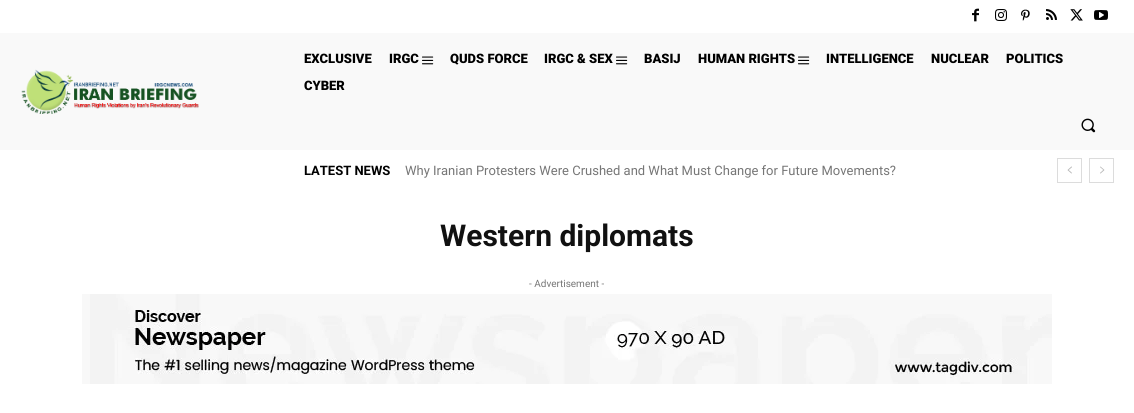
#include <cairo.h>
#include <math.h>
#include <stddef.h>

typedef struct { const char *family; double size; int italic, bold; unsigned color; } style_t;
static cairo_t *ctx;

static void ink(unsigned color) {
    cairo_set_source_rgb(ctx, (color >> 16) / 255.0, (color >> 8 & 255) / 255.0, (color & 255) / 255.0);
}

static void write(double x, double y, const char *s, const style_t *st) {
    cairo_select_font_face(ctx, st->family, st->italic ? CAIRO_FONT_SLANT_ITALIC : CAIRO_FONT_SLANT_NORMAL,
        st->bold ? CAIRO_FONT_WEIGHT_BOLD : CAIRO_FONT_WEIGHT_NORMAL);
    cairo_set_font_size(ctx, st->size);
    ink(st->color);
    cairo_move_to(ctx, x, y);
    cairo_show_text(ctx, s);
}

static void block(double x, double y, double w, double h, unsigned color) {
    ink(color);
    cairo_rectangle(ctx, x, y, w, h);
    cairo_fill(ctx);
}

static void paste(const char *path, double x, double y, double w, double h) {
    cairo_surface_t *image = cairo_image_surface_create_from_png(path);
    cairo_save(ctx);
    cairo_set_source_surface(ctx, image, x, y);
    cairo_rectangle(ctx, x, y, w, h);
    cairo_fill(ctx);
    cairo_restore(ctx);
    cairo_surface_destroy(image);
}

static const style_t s1 = {"Roboto Black", 13, 0, 0, 0x000000};
static const style_t s2 = {"Roboto", 13, 0, 1, 0x000000};
static const style_t s3 = {"Roboto", 13, 0, 0, 0x767676};
static const style_t s4 = {"Roboto", 30, 0, 1, 0x111111};
static const style_t s5 = {"Roboto", 10, 0, 0, 0x767676};

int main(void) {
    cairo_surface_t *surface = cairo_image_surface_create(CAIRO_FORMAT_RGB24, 1134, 413);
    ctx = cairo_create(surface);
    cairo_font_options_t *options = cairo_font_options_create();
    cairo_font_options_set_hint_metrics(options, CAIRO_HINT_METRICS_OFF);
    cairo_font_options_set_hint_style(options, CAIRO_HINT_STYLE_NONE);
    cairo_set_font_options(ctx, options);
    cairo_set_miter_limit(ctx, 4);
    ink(0xffffff);
    cairo_paint(ctx);
    paste("pic1.png", 972, 8, 7, 14);
    paste("pic2.png", 995, 9, 12, 12);
    paste("pic3.png", 1021, 9, 9, 12);
    paste("pic4.png", 1046, 9, 11, 11);
    paste("pic5.png", 1070, 9, 13, 12);
    paste("pic6.png", 1094, 10, 14, 10);
    block(0, 33, 1134, 117, 0xf9f9f9);
    paste("pic7.png", 21, 69, 178, 45);
    write(304, 63, "EXCLUSIVE", &s1);
    write(389, 63, "IRGC", &s1);
    paste("pic8.png", 422, 56, 12, 9);
    write(450, 63, "QUDS FORCE", &s1);
    write(544, 63, "IRGC & SEX", &s1);
    paste("pic8.png", 616, 56, 12, 9);
    write(644, 63, "BASIJ", &s1);
    write(698, 63, "HUMAN RIGHTS", &s1);
    paste("pic8.png", 798, 56, 12, 9);
    write(826, 63, "INTELLIGENCE", &s1);
    write(931, 63, "NUCLEAR", &s1);
    write(1006, 63, "POLITICS", &s1);
    write(304, 90, "CYBER", &s1);
    paste("pic9.png", 1081, 118, 15, 15);
    write(304, 175, "LATEST NEWS", &s2);
    write(405, 175, "Why Iranian Protesters Were Crushed and What Must Change for Future Movements?", &s3);
    cairo_rectangle(ctx, 1057.5, 158.5, 24, 24);
    ink(0xdcdcdc);
    cairo_set_line_width(ctx, 1);
    cairo_stroke(ctx);
    paste("pic10.png", 1067, 166, 5, 8);
    cairo_rectangle(ctx, 1089.5, 158.5, 24, 24);
    cairo_stroke(ctx);
    paste("pic11.png", 1100, 166, 5, 8);
    write(440, 246, "Western diplomats", &s4);
    write(529, 287, "- Advertisement -", &s5);
    paste("pic12.png", 82, 294, 970, 90);
    cairo_surface_write_to_png(surface, "screenshot.png");
    cairo_font_options_destroy(options);
    cairo_destroy(ctx);
    cairo_surface_destroy(surface);
    return 0;
}
